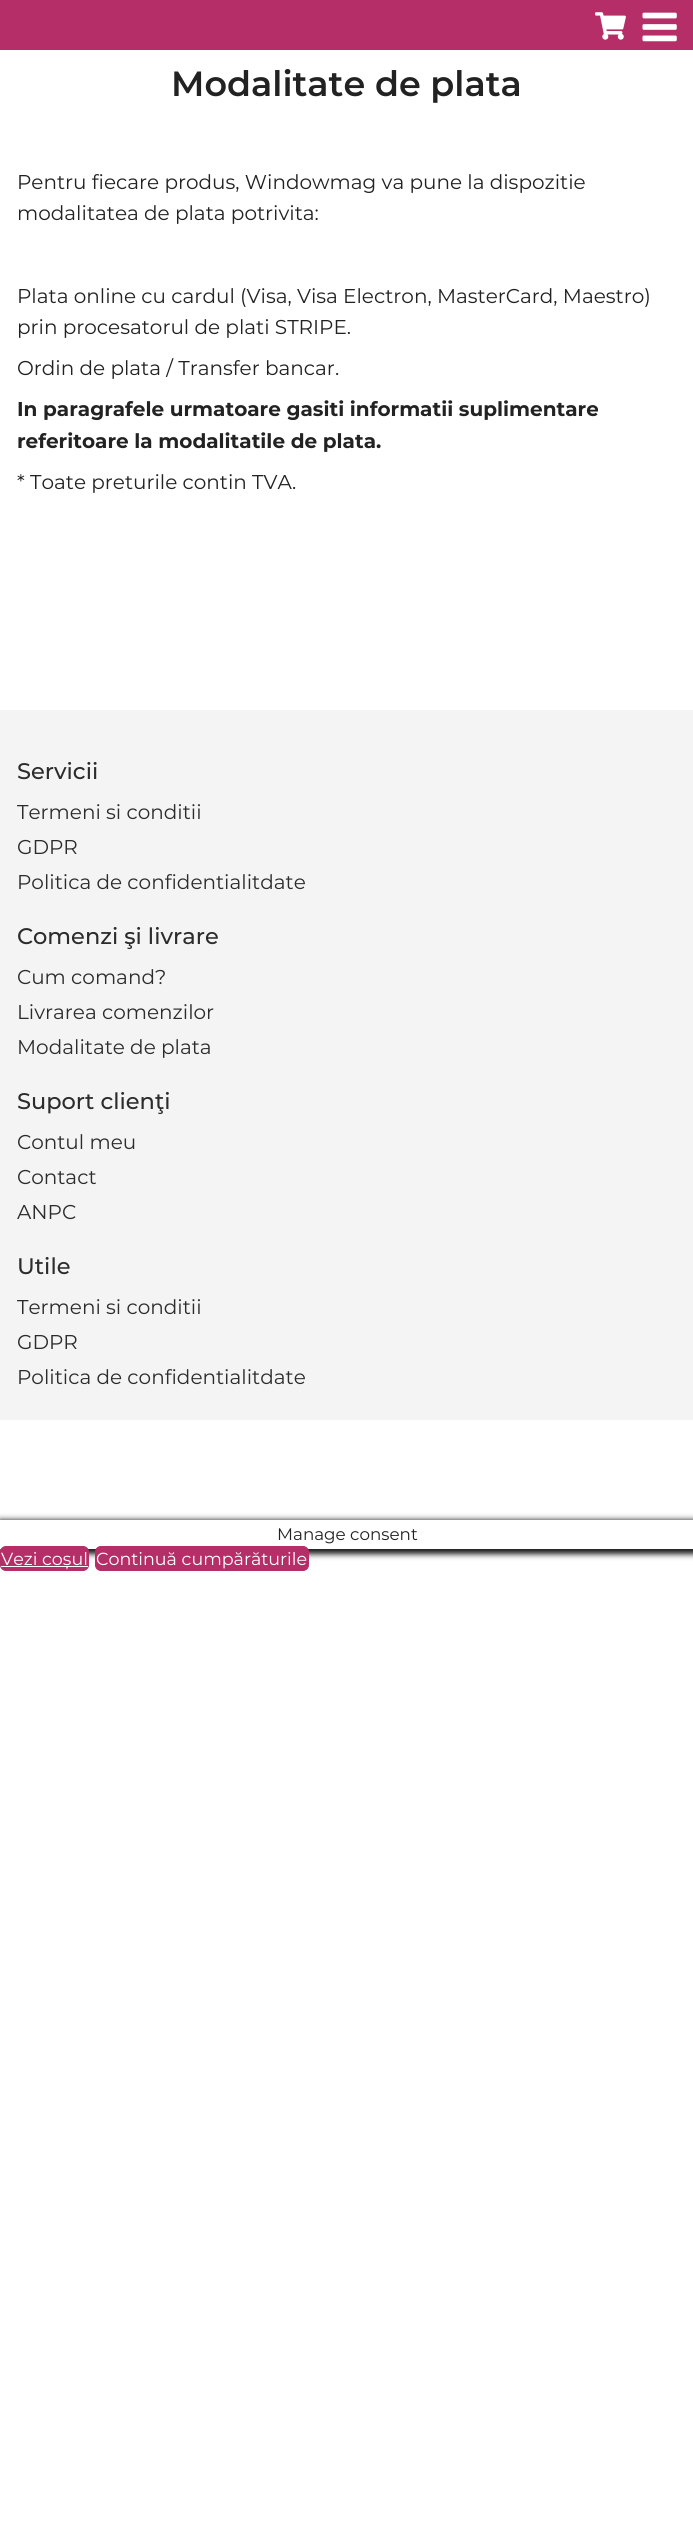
#include <cairo.h>
#include <math.h>
#include <stddef.h>

typedef struct { const char *family; double size; int italic, bold; unsigned color; } style_t;
static cairo_t *ctx;

static void ink(unsigned color) {
    cairo_set_source_rgb(ctx, (color >> 16) / 255.0, (color >> 8 & 255) / 255.0, (color & 255) / 255.0);
}

static void write(double x, double y, const char *s, const style_t *st) {
    cairo_select_font_face(ctx, st->family, st->italic ? CAIRO_FONT_SLANT_ITALIC : CAIRO_FONT_SLANT_NORMAL,
        st->bold ? CAIRO_FONT_WEIGHT_BOLD : CAIRO_FONT_WEIGHT_NORMAL);
    cairo_set_font_size(ctx, st->size);
    ink(st->color);
    cairo_move_to(ctx, x, y);
    cairo_show_text(ctx, s);
}

static void block(double x, double y, double w, double h, unsigned color) {
    ink(color);
    cairo_rectangle(ctx, x, y, w, h);
    cairo_fill(ctx);
}

static void round_path(double x, double y, double w, double h, double r) {
    cairo_new_sub_path(ctx);
    cairo_arc(ctx, x + w - r, y + h - r, r, 0, M_PI / 2);
    cairo_arc(ctx, x + r, y + h - r, r, M_PI / 2, M_PI);
    cairo_arc(ctx, x + r, y + r, r, M_PI, 1.5 * M_PI);
    cairo_arc(ctx, x + w - r, y + r, r, 1.5 * M_PI, 2 * M_PI);
    cairo_close_path(ctx);
}

static void blur_box(double x, double y, double w, double h, double r, double blur, double alpha) {
    cairo_push_group_with_content(ctx, CAIRO_CONTENT_ALPHA);
    cairo_set_operator(ctx, CAIRO_OPERATOR_SOURCE);
    for (int i = 15; i >= -15 && fmin(w, h) + blur * i / 3 > 0; i -= 2) {
        double e = blur * i / 6;
        cairo_set_source_rgba(ctx, 0, 0, 0, alpha * erfc((i - 1) / 8.5) / 2);
        round_path(x - e, y - e, w + 2 * e, h + 2 * e, fmax(0, fmin(r + e + blur * .6, fmin(w, h) / 2 + e)));
        cairo_fill(ctx);
    }
    cairo_pattern_t *soft = cairo_pop_group(ctx);
    cairo_mask(ctx, soft);
    cairo_pattern_destroy(soft);
}

static void paste(const char *path, double x, double y, double w, double h) {
    cairo_surface_t *image = cairo_image_surface_create_from_png(path);
    cairo_save(ctx);
    cairo_set_source_surface(ctx, image, x, y);
    cairo_rectangle(ctx, x, y, w, h);
    cairo_fill(ctx);
    cairo_restore(ctx);
    cairo_surface_destroy(image);
}

static const style_t s1 = {"Montserrat SemiBold", 35, 0, 0, 0x222222};
static const style_t s2 = {"Montserrat", 20, 0, 0, 0x222222};
static const style_t s3 = {"Montserrat", 20, 0, 1, 0x222222};
static const style_t s4 = {"Montserrat Medium", 22.5, 0, 0, 0x2c2c2c};
static const style_t s5 = {"Montserrat", 20, 0, 0, 0x2c2c2c};
static const style_t s6 = {"Montserrat", 16.75, 0, 0, 0x222222};
static const style_t s7 = {"Montserrat", 17.5, 0, 0, 0xffffff};

int main(void) {
    cairo_surface_t *surface = cairo_image_surface_create(CAIRO_FORMAT_RGB24, 693, 2541);
    ctx = cairo_create(surface);
    cairo_font_options_t *options = cairo_font_options_create();
    cairo_font_options_set_hint_metrics(options, CAIRO_HINT_METRICS_OFF);
    cairo_font_options_set_hint_style(options, CAIRO_HINT_STYLE_NONE);
    cairo_set_font_options(ctx, options);
    cairo_set_miter_limit(ctx, 4);
    ink(0xffffff);
    cairo_paint(ctx);
    block(0, 0, 693, 50, 0xb62e67);
    paste("pic1.png", 595, 12, 31, 28);
    paste("pic2.png", 642, 12, 35, 30);
    write(171, 96, "Modalitate de plata", &s1);
    write(17, 189, "Pentru fiecare produs, Windowmag va pune la dispozitie", &s2);
    write(17, 220, "modalitatea de plata potrivita:", &s2);
    write(17, 303, "Plata online cu cardul (Visa, Visa Electron, MasterCard, Maestro)", &s2);
    write(17, 334, "prin procesatorul de plati STRIPE.", &s2);
    write(17, 375, "Ordin de plata / Transfer bancar.", &s2);
    write(17, 416, "In paragrafele urmatoare gasiti informatii suplimentare", &s3);
    write(17, 448, "referitoare la modalitatile de plata.", &s3);
    write(17, 489, "* Toate preturile contin TVA.", &s2);
    block(0, 710, 693, 710, 0xf4f4f4);
    write(17, 779, "Servicii", &s4);
    write(17, 819, "Termeni si conditii", &s5);
    write(17, 854, "GDPR", &s5);
    write(17, 889, "Politica de confidentialitdate", &s5);
    write(17, 944, "Comenzi şi livrare", &s4);
    write(17, 984, "Cum comand?", &s5);
    write(17, 1019, "Livrarea comenzilor", &s5);
    write(17, 1054, "Modalitate de plata", &s5);
    write(17, 1109, "Suport clienţi", &s4);
    write(17, 1149, "Contul meu", &s5);
    write(17, 1184, "Contact", &s5);
    write(17, 1219, "ANPC", &s5);
    write(17, 1274, "Utile", &s4);
    write(17, 1314, "Termeni si conditii", &s5);
    write(17, 1349, "GDPR", &s5);
    write(17, 1384, "Politica de confidentialitdate", &s5);
    cairo_save(ctx);
    cairo_set_fill_rule(ctx, CAIRO_FILL_RULE_EVEN_ODD);
    cairo_new_path(ctx);
    cairo_move_to(ctx, 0, 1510);
    cairo_line_to(ctx, 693, 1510);
    cairo_line_to(ctx, 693, 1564);
    cairo_line_to(ctx, 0, 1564);
    cairo_close_path(ctx);
    cairo_move_to(ctx, 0, 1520);
    cairo_line_to(ctx, 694, 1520);
    cairo_line_to(ctx, 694, 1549);
    cairo_line_to(ctx, 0, 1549);
    cairo_close_path(ctx);
    cairo_clip(ctx);
    ink(0x161616);
    blur_box(0, 1520, 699, 34, 0, 3, 1);
    cairo_restore(ctx);
    write(277, 1540, "Manage consent", &s6);
    ink(0xb62e67);
    round_path(0.5, 1546.5, 88, 24, 5.5);
    cairo_fill_preserve(ctx);
    cairo_set_line_width(ctx, 1);
    cairo_stroke(ctx);
    block(1, 1566, 87, 1, 0xffffff);
    write(1, 1565, "Vezi coșul", &s7);
    ink(0xb62e67);
    round_path(95.5, 1546.5, 213, 24, 5.5);
    cairo_fill_preserve(ctx);
    cairo_stroke(ctx);
    write(96, 1565, "Continuă cumpărăturile", &s7);
    cairo_surface_write_to_png(surface, "screenshot.png");
    cairo_font_options_destroy(options);
    cairo_destroy(ctx);
    cairo_surface_destroy(surface);
    return 0;
}
